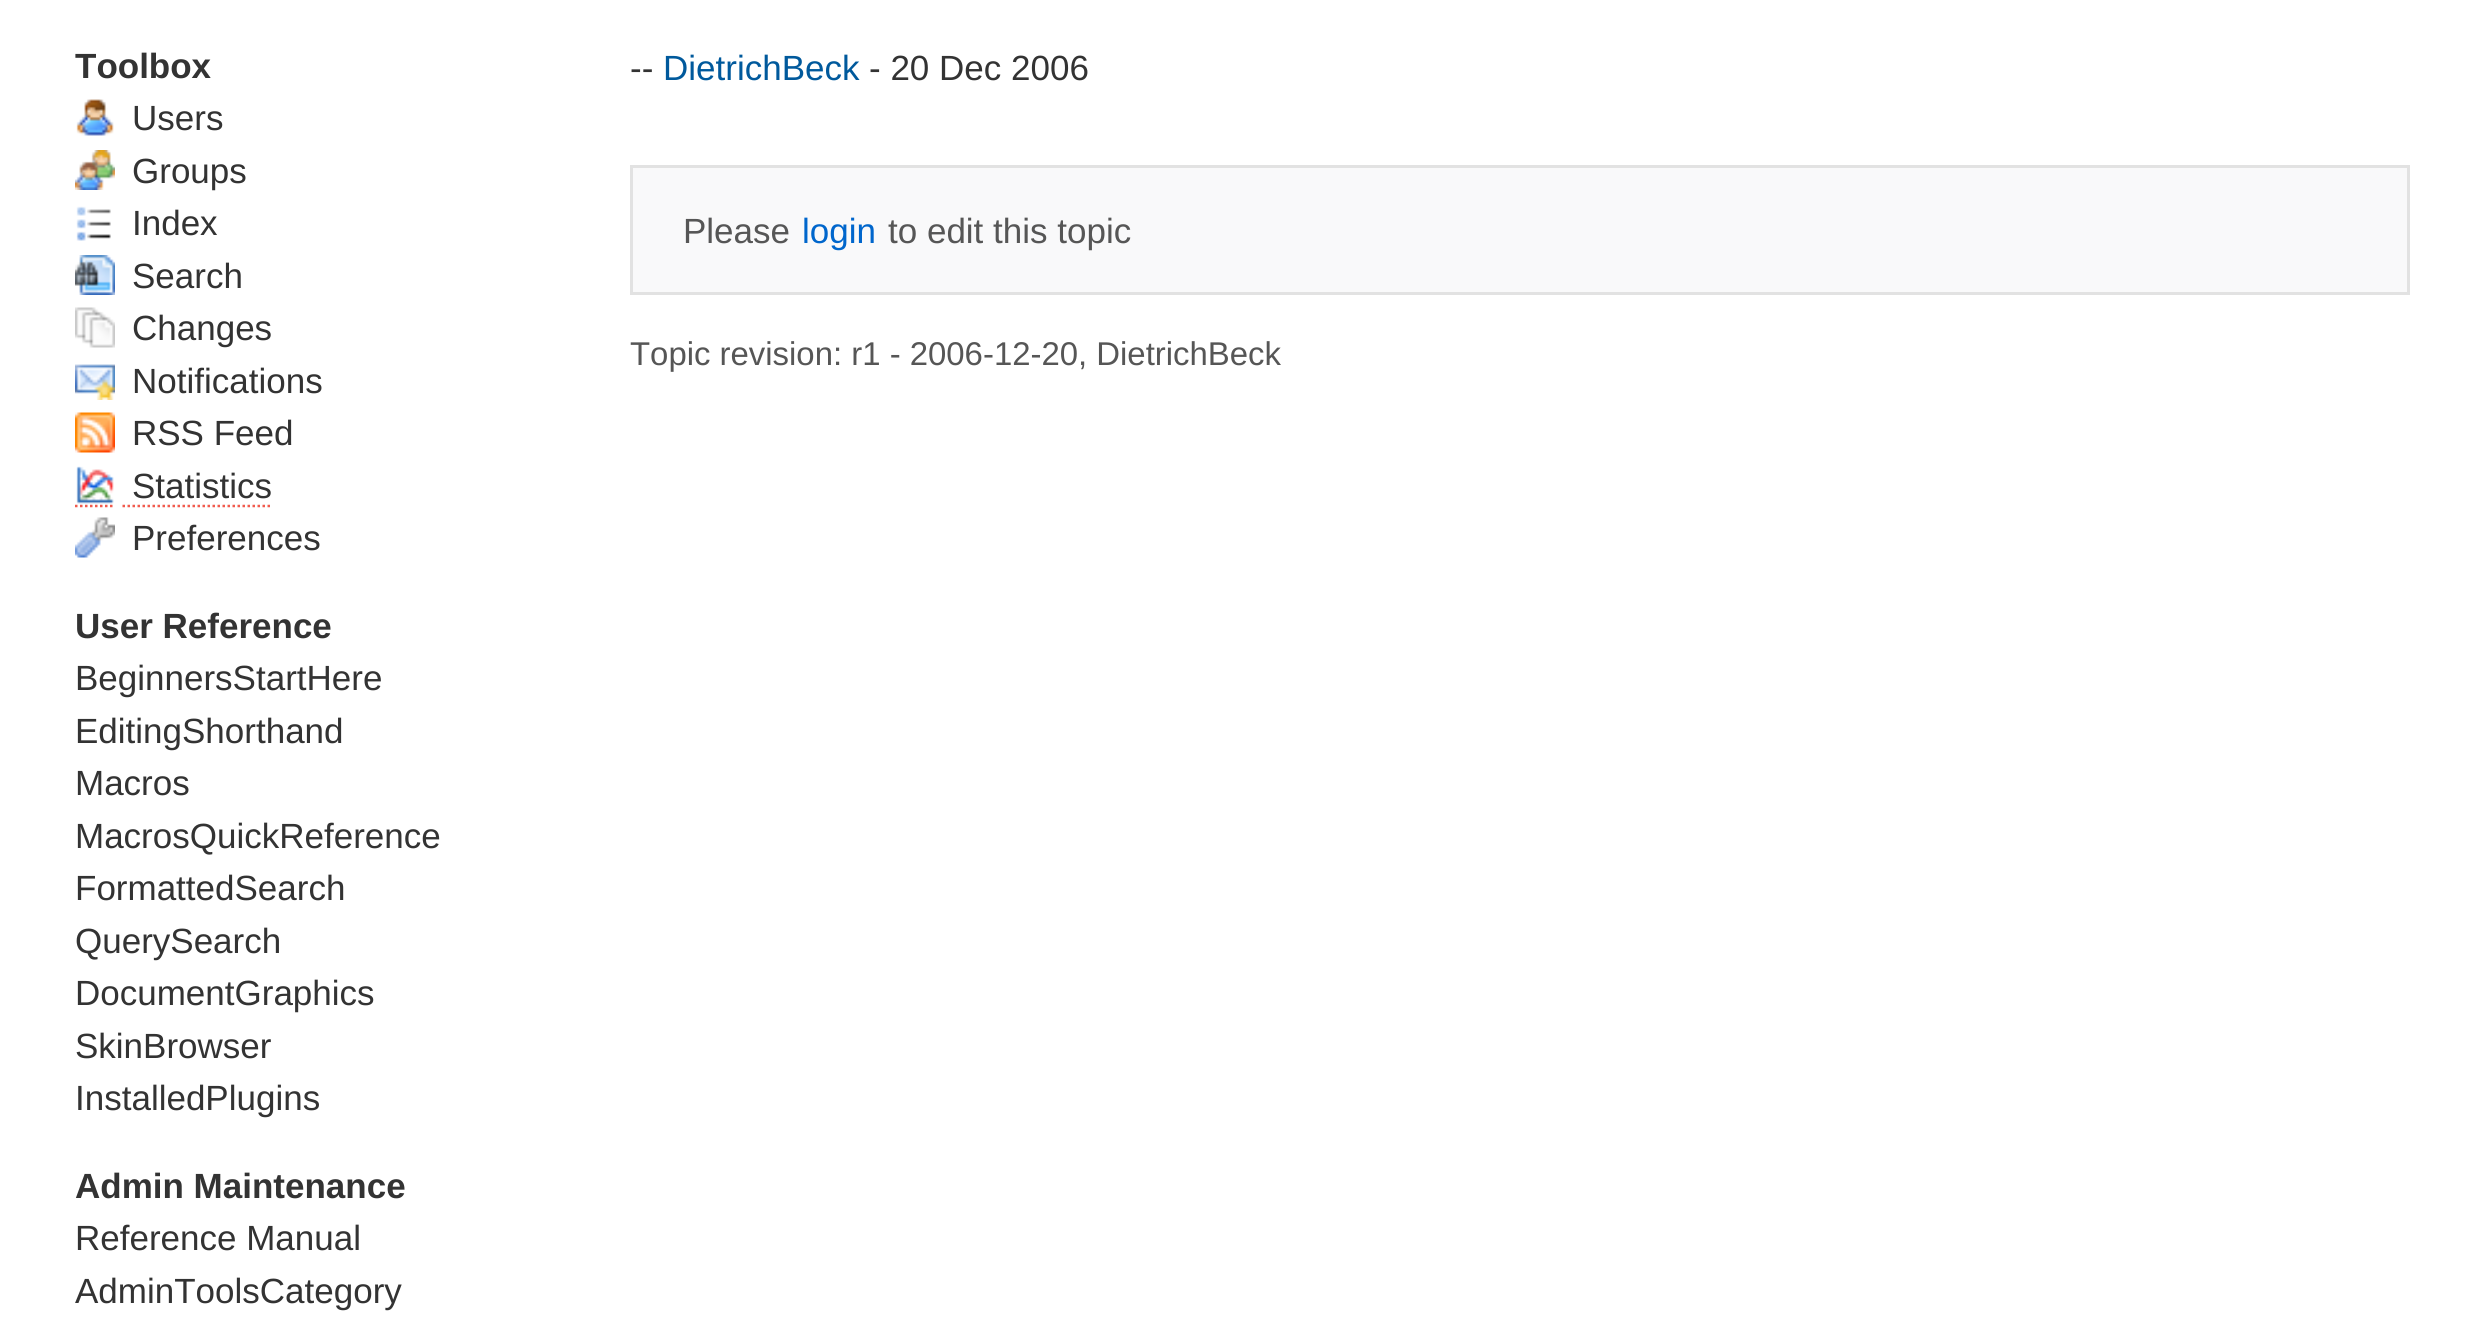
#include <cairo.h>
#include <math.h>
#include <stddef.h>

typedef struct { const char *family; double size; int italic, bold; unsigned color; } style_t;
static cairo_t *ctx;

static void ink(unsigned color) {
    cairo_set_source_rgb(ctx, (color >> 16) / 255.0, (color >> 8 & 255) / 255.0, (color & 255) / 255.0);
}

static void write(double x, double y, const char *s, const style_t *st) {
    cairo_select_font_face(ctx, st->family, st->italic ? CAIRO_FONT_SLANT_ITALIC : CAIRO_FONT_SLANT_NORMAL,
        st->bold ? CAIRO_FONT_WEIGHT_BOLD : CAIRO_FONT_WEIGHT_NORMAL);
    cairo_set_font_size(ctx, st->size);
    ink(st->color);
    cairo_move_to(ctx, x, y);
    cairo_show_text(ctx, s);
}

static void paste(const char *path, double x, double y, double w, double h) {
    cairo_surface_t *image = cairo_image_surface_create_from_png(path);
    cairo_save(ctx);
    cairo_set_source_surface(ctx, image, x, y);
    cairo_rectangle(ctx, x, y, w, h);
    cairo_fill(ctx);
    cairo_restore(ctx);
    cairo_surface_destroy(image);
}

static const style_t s1 = {"Liberation Sans", 35, 0, 1, 0x333333};
static const style_t s2 = {"Liberation Sans", 35, 0, 0, 0x333333};
static const style_t s3 = {"Liberation Sans", 35, 0, 0, 0x00599c};
static const style_t s4 = {"Liberation Sans", 35, 0, 0, 0x565656};
static const style_t s5 = {"Liberation Sans", 35, 0, 0, 0x0066cc};
static const style_t s6 = {"Liberation Sans", 32.9, 0, 0, 0x565656};

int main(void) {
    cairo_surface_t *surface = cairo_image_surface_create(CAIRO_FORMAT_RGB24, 2480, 1339);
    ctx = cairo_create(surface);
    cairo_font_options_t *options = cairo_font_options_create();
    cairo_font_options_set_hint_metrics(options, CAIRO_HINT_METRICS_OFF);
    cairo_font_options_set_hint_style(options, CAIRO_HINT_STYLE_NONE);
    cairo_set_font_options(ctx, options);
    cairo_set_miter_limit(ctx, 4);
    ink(0xffffff);
    cairo_paint(ctx);
    write(75, 78, "Toolbox", &s1);
    paste("pic1.png", 76, 99, 38, 37);
    write(132, 130, "Users", &s2);
    paste("pic2.png", 75, 150, 40, 40);
    write(132, 183, "Groups", &s2);
    paste("pic3.png", 76, 206, 35, 35);
    write(132, 235, "Index", &s2);
    paste("pic4.png", 75, 255, 40, 40);
    write(132, 288, "Search", &s2);
    paste("pic5.png", 75, 307, 40, 41);
    write(132, 340, "Changes", &s2);
    paste("pic6.png", 75, 364, 40, 36);
    write(132, 393, "Notifications", &s2);
    paste("pic7.png", 75, 412, 40, 41);
    write(132, 445, "RSS Feed", &s2);
    paste("pic8.png", 76, 466, 38, 38);
    write(132, 498, "Statistics", &s2);
    cairo_new_path(ctx);
    cairo_move_to(ctx, 75, 506);
    cairo_line_to(ctx, 115, 506);
    ink(0xf15b4e);
    cairo_set_line_width(ctx, 2.5);
    cairo_set_dash(ctx, (double[]){2.5, 2.5}, 2, 0);
    cairo_stroke(ctx);
    cairo_new_path(ctx);
    cairo_move_to(ctx, 122.5, 506);
    cairo_line_to(ctx, 272.5, 506);
    cairo_stroke(ctx);
    paste("pic9.png", 75, 517, 40, 41);
    write(132, 550, "Preferences", &s2);
    write(75, 638, "User Reference", &s1);
    write(75, 690, "BeginnersStartHere", &s2);
    write(75, 743, "EditingShorthand", &s2);
    write(75, 795, "Macros", &s2);
    write(75, 848, "MacrosQuickReference", &s2);
    write(75, 900, "FormattedSearch", &s2);
    write(75, 953, "QuerySearch", &s2);
    write(75, 1005, "DocumentGraphics", &s2);
    write(75, 1058, "SkinBrowser", &s2);
    write(75, 1110, "InstalledPlugins", &s2);
    write(75, 1198, "Admin Maintenance", &s1);
    write(75, 1250, "Reference Manual", &s2);
    write(75, 1303, "AdminToolsCategory", &s2);
    write(630, 80, "--", &s2);
    write(663, 80, "DietrichBeck", &s3);
    write(869, 80, "- 20 Dec 2006", &s2);
    ink(0xf9f9fa);
    cairo_rectangle(ctx, 631.5, 166.5, 1777, 127);
    cairo_fill_preserve(ctx);
    ink(0xe2e2e2);
    cairo_set_line_width(ctx, 3);
    cairo_set_dash(ctx, NULL, 0, 0);
    cairo_stroke(ctx);
    write(683, 243, "Please", &s4);
    write(802, 243, "login", &s5);
    write(888, 243, "to edit this topic", &s4);
    write(630, 365, "Topic revision: r1 - 2006-12-20, DietrichBeck", &s6);
    cairo_surface_write_to_png(surface, "screenshot.png");
    cairo_font_options_destroy(options);
    cairo_destroy(ctx);
    cairo_surface_destroy(surface);
    return 0;
}
